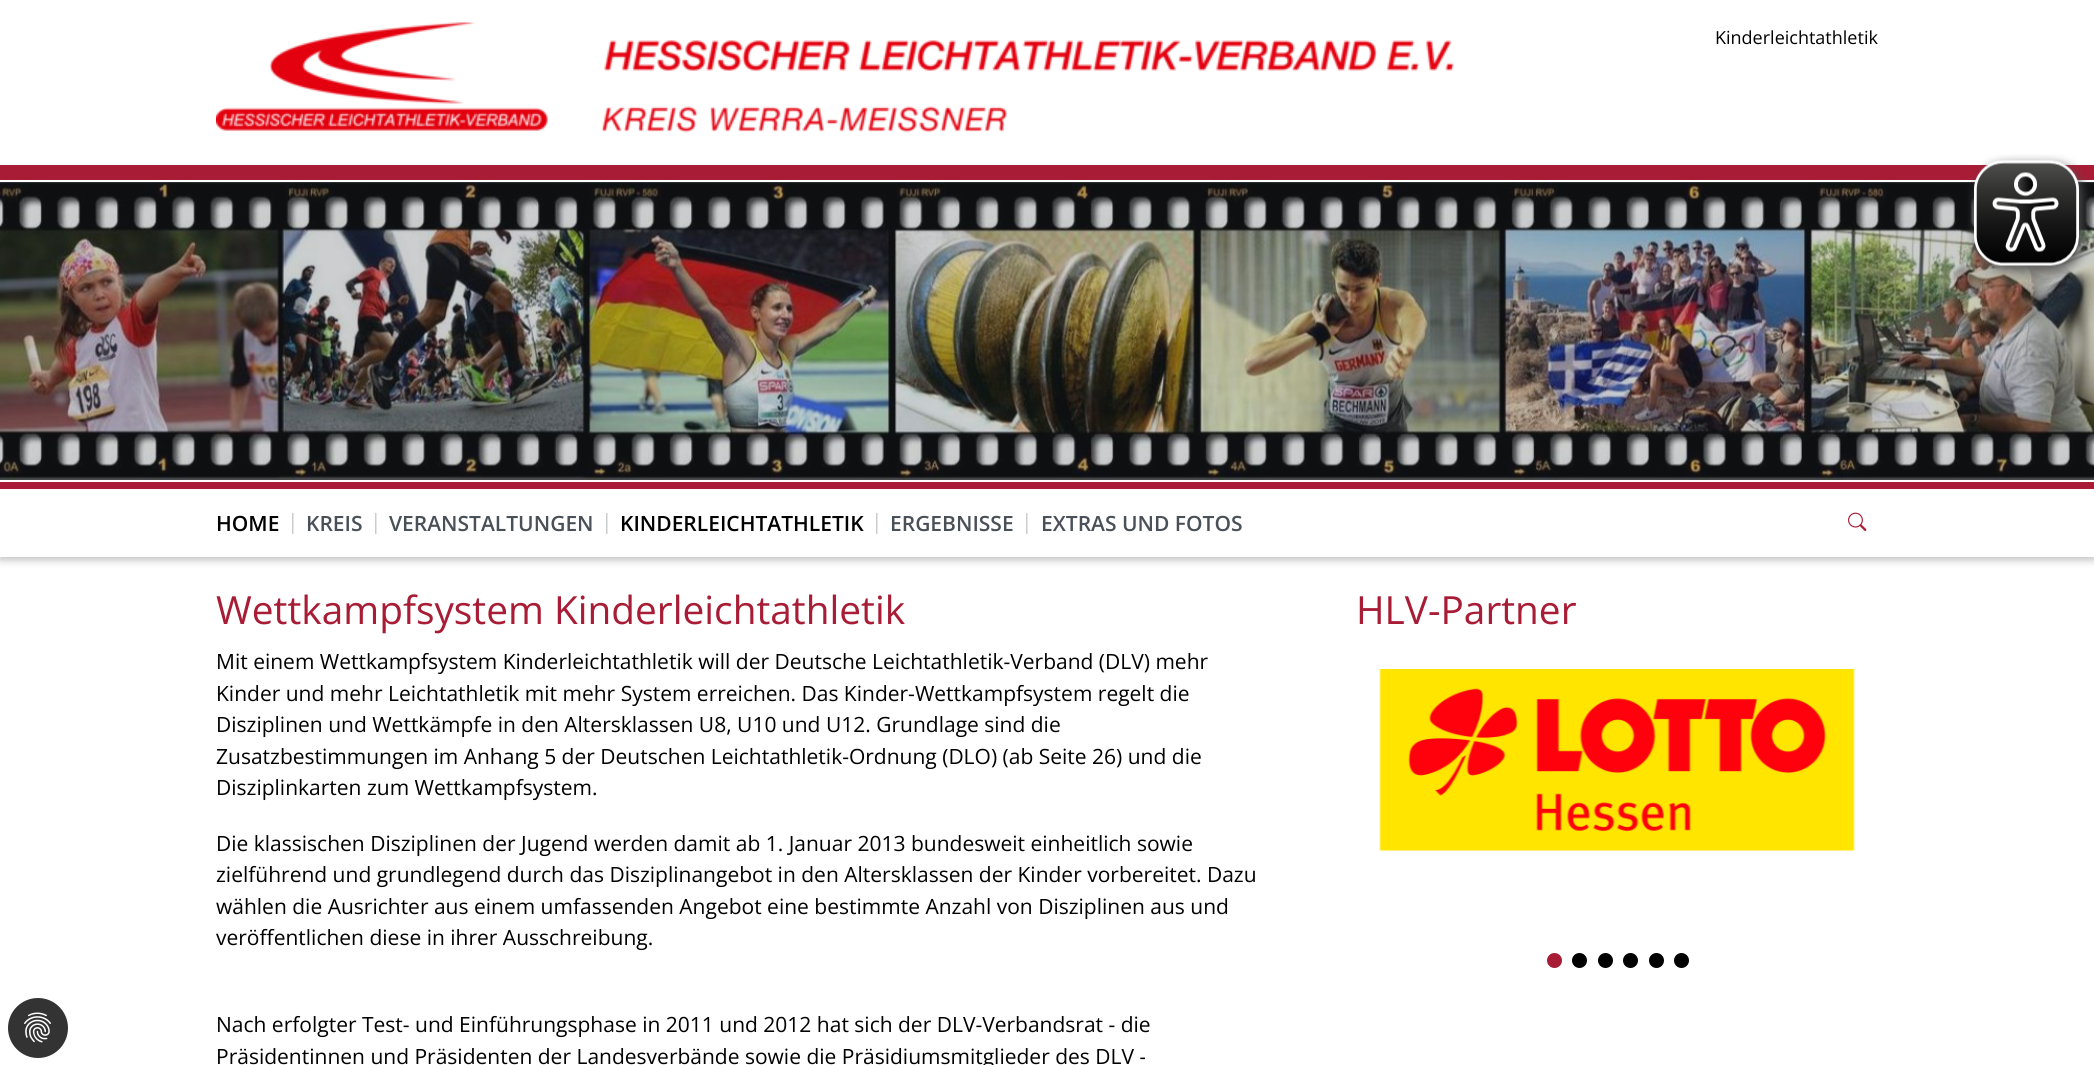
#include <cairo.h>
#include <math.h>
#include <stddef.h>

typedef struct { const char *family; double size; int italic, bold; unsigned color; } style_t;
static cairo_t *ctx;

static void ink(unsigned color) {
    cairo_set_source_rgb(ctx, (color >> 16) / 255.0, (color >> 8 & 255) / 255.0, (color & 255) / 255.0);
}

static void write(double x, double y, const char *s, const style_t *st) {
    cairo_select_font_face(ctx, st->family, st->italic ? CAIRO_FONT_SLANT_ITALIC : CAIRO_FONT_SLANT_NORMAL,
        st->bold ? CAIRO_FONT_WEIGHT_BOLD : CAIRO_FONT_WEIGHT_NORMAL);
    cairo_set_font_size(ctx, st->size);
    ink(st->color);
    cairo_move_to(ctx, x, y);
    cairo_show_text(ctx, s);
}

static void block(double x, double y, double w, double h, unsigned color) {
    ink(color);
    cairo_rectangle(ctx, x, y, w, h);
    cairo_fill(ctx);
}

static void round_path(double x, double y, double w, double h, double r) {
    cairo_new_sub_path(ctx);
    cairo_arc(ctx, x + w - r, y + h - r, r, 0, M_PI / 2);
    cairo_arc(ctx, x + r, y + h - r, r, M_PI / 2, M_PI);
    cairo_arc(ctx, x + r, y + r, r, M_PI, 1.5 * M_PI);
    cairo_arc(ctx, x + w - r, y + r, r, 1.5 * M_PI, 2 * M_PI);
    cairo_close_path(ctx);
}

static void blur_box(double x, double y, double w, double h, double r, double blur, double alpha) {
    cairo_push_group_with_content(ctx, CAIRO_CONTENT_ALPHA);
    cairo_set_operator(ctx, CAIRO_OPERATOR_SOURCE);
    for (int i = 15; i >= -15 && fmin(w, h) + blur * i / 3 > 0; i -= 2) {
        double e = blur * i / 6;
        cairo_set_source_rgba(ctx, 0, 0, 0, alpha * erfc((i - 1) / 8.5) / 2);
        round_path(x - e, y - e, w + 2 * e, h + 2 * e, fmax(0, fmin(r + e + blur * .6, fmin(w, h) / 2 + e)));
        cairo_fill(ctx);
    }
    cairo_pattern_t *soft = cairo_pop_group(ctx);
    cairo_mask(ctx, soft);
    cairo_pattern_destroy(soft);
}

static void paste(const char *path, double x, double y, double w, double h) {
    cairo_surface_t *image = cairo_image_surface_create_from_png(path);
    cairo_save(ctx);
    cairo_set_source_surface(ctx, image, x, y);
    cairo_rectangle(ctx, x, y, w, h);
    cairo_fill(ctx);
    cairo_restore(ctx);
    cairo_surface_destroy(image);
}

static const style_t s1 = {"Open Sans", 18, 0, 0, 0x000000};
static const style_t s2 = {"Open Sans SemiBold", 21, 0, 0, 0x000000};
static const style_t s3 = {"Open Sans", 21, 0, 0, 0xc8cbcd};
static const style_t s4 = {"Open Sans SemiBold", 21, 0, 0, 0x495057};
static const style_t s5 = {"Open Sans", 38.8, 0, 0, 0xa81c35};
static const style_t s6 = {"Open Sans", 21, 0, 0, 0x000000};

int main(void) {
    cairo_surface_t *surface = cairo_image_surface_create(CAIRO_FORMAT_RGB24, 2094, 1065);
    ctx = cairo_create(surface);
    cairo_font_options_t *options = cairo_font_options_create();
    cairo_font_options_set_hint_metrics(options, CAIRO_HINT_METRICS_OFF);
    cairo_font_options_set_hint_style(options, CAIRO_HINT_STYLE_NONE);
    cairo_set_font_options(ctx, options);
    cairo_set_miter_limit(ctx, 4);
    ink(0xffffff);
    cairo_paint(ctx);
    block(0, 165, 2094, 15, 0xa81c35);
    paste("pic1.png", 216, 22, 1238, 111);
    write(1715, 44, "Kinderleichtathletik", &s1);
    block(0, 182, 2094, 298, 0x343a40);
    paste("pic2.png", 0, 182, 2094, 298);
    ink(0x000000);
    blur_box(0, 485, 2094, 75, 0, 4, 0.25);
    block(0, 489, 2094, 68, 0xffffff);
    block(0, 482, 2094, 7, 0xa81c35);
    block(0, 480, 2094, 2, 0xffffff);
    write(216, 531, "HOME", &s2);
    write(287, 529, "|", &s3);
    write(306, 531, "KREIS", &s4);
    write(370, 529, "|", &s3);
    write(389, 531, "VERANSTALTUNGEN", &s4);
    write(601, 529, "|", &s3);
    write(620, 531, "KINDERLEICHTATHLETIK", &s2);
    write(871, 529, "|", &s3);
    write(890, 531, "ERGEBNISSE", &s4);
    write(1021, 529, "|", &s3);
    write(1041, 531, "EXTRAS UND FOTOS", &s4);
    paste("pic3.png", 1848, 512, 19, 19);
    write(216, 624, "Wettkampfsystem Kinderleichtathletik", &s5);
    write(216, 669, "Mit einem Wettkampfsystem Kinderleichtathletik will der Deutsche Leichtathletik-Verband (DLV) mehr", &s6);
    write(216, 701, "Kinder und mehr Leichtathletik mit mehr System erreichen. Das Kinder-Wettkampfsystem regelt die", &s6);
    write(216, 732, "Disziplinen und Wettkämpfe in den Altersklassen U8, U10 und U12. Grundlage sind die", &s6);
    write(216, 764, "Zusatzbestimmungen im Anhang 5 der Deutschen Leichtathletik-Ordnung (DLO) (ab Seite 26) und die", &s6);
    write(216, 795, "Disziplinkarten zum Wettkampfsystem.", &s6);
    write(216, 851, "Die klassischen Disziplinen der Jugend werden damit ab 1. Januar 2013 bundesweit einheitlich sowie", &s6);
    write(216, 882, "zielführend und grundlegend durch das Disziplinangebot in den Altersklassen der Kinder vorbereitet. Dazu", &s6);
    write(216, 914, "wählen die Ausrichter aus einem umfassenden Angebot eine bestimmte Anzahl von Disziplinen aus und", &s6);
    write(216, 945, "veröffentlichen diese in ihrer Ausschreibung.", &s6);
    write(216, 1032, "Nach erfolgter Test- und Einführungsphase in 2011 und 2012 hat sich der DLV-Verbandsrat - die", &s6);
    write(216, 1064, "Präsidentinnen und Präsidenten der Landesverbände sowie die Präsidiumsmitglieder des DLV -", &s6);
    write(1356, 624, "HLV-Partner", &s5);
    paste("pic4.png", 1379, 669, 476, 182);
    cairo_arc(ctx, 1554.5, 960.5, 7.5, 0, 2 * M_PI);
    cairo_fill(ctx);
    ink(0x000000);
    cairo_arc(ctx, 1579.5, 960.5, 7.5, 0, 2 * M_PI);
    cairo_fill(ctx);
    cairo_arc(ctx, 1605.5, 960.5, 7.5, 0, 2 * M_PI);
    cairo_fill(ctx);
    cairo_arc(ctx, 1630.5, 960.5, 7.5, 0, 2 * M_PI);
    cairo_fill(ctx);
    cairo_arc(ctx, 1656.5, 960.5, 7.5, 0, 2 * M_PI);
    cairo_fill(ctx);
    cairo_arc(ctx, 1681.5, 960.5, 7.5, 0, 2 * M_PI);
    cairo_fill(ctx);
    paste("pic5.png", 1967, 154, 125, 126);
    ink(0x333333);
    cairo_arc(ctx, 38, 1028, 30, 0, 2 * M_PI);
    cairo_fill(ctx);
    paste("pic6.png", 24, 1012, 27, 31);
    cairo_surface_write_to_png(surface, "screenshot.png");
    cairo_font_options_destroy(options);
    cairo_destroy(ctx);
    cairo_surface_destroy(surface);
    return 0;
}
